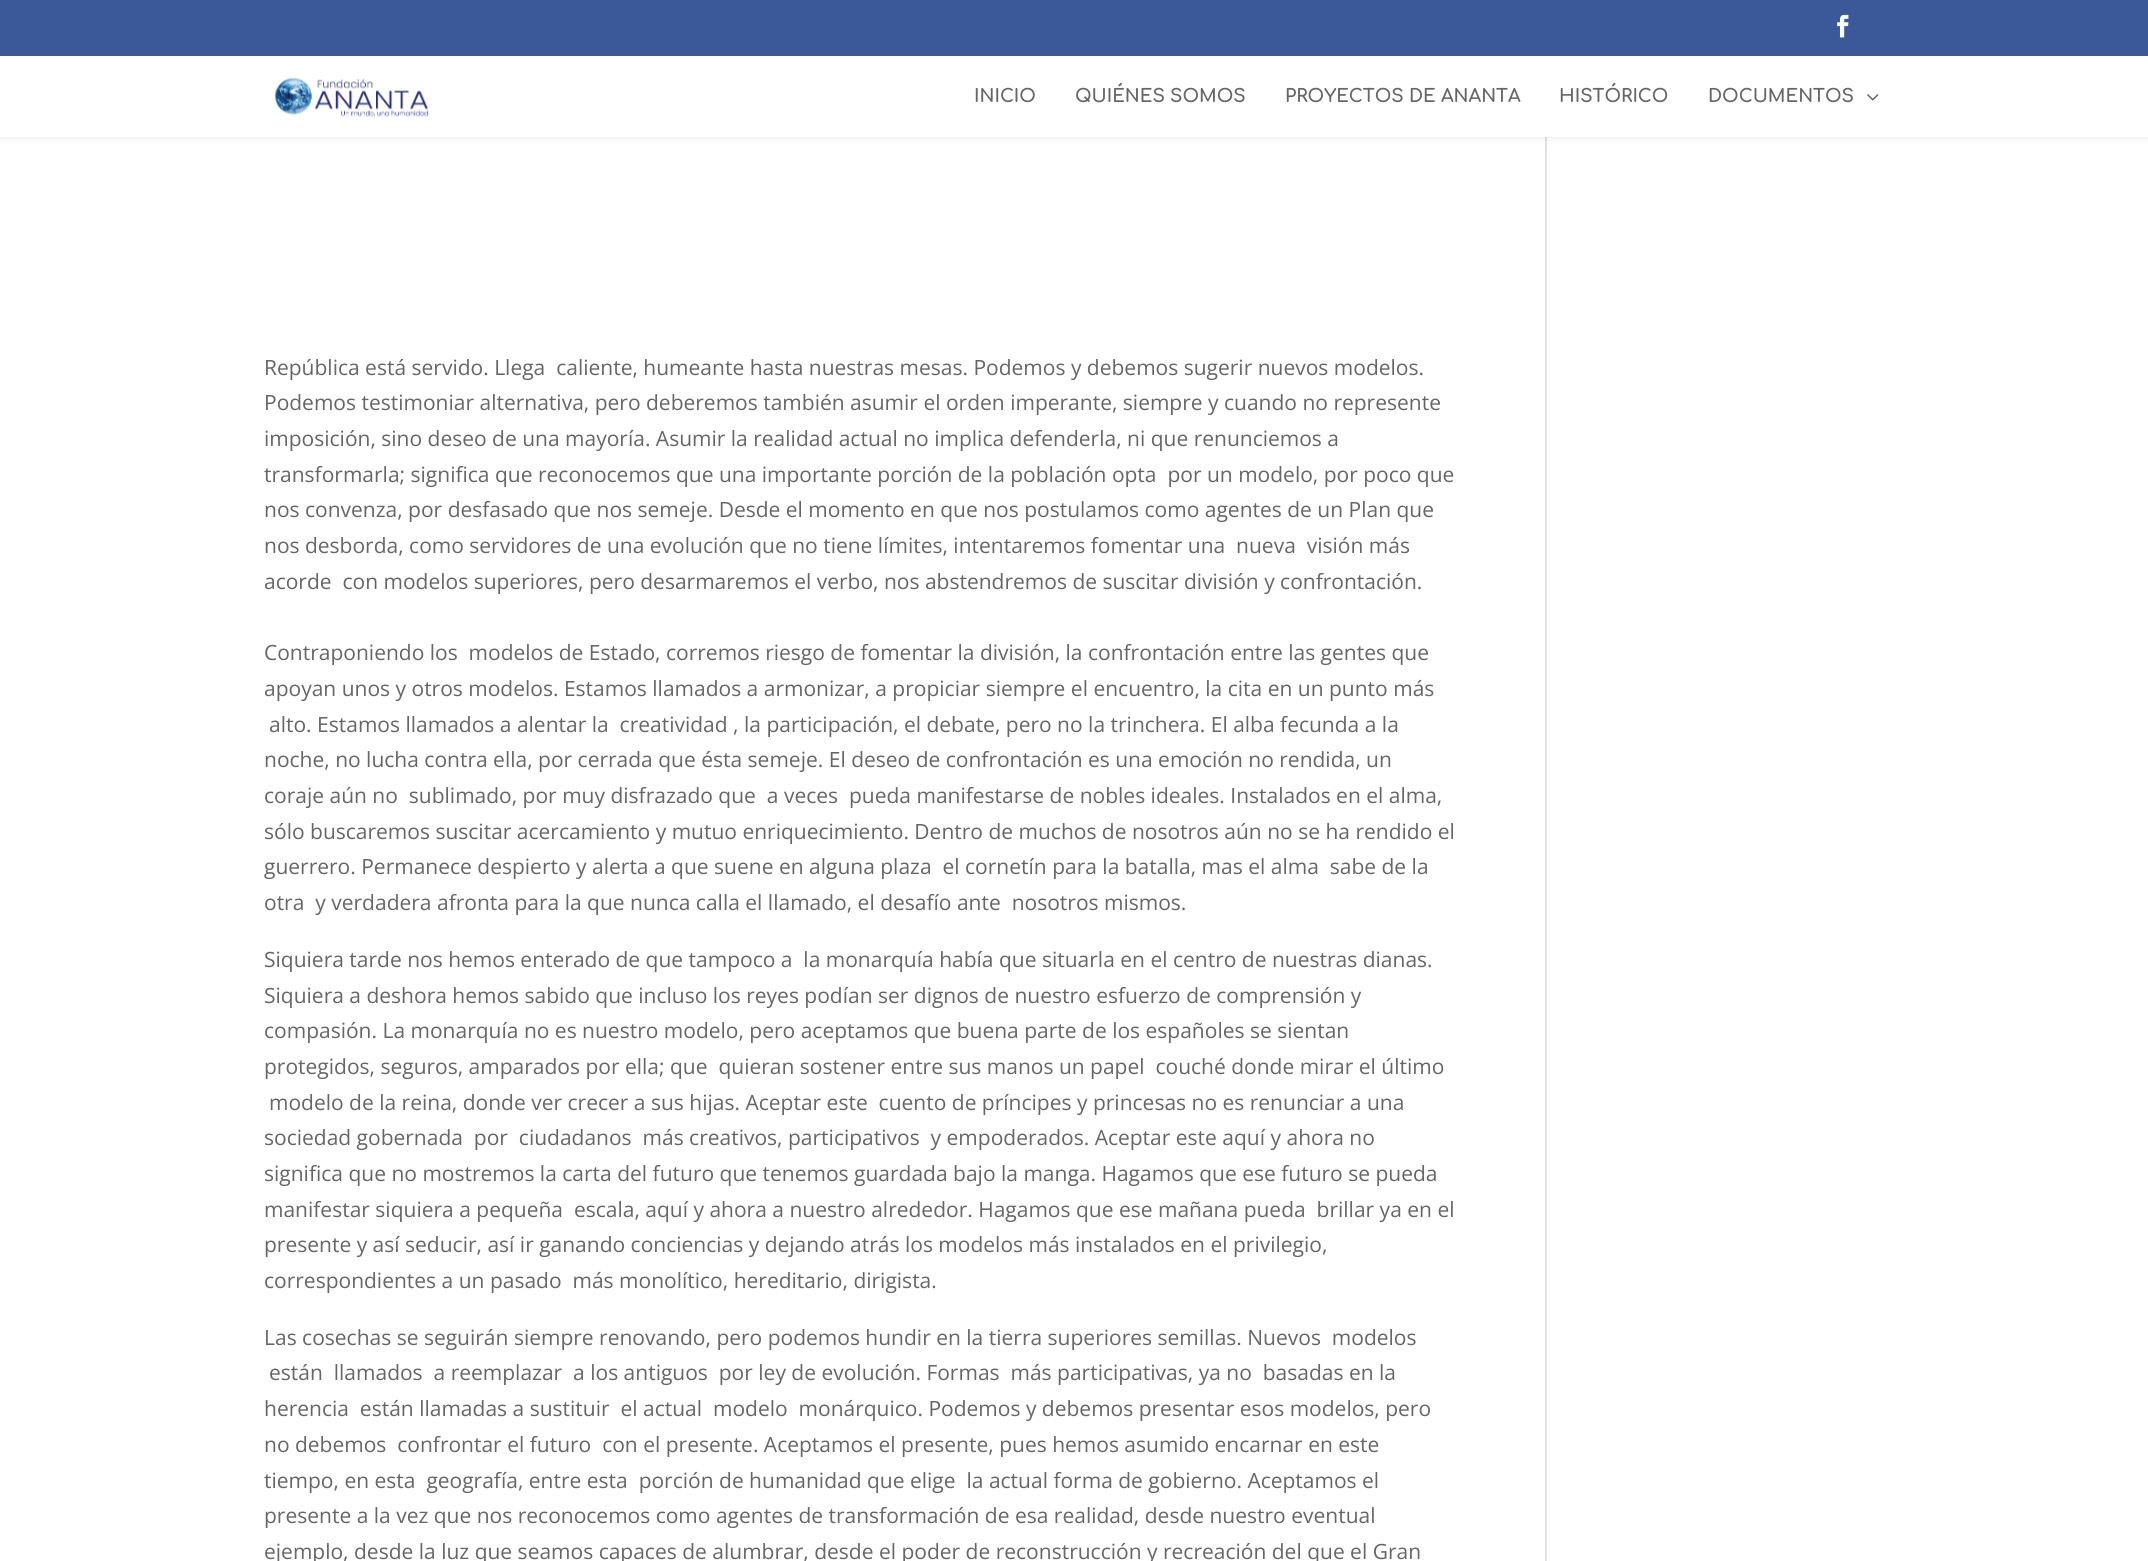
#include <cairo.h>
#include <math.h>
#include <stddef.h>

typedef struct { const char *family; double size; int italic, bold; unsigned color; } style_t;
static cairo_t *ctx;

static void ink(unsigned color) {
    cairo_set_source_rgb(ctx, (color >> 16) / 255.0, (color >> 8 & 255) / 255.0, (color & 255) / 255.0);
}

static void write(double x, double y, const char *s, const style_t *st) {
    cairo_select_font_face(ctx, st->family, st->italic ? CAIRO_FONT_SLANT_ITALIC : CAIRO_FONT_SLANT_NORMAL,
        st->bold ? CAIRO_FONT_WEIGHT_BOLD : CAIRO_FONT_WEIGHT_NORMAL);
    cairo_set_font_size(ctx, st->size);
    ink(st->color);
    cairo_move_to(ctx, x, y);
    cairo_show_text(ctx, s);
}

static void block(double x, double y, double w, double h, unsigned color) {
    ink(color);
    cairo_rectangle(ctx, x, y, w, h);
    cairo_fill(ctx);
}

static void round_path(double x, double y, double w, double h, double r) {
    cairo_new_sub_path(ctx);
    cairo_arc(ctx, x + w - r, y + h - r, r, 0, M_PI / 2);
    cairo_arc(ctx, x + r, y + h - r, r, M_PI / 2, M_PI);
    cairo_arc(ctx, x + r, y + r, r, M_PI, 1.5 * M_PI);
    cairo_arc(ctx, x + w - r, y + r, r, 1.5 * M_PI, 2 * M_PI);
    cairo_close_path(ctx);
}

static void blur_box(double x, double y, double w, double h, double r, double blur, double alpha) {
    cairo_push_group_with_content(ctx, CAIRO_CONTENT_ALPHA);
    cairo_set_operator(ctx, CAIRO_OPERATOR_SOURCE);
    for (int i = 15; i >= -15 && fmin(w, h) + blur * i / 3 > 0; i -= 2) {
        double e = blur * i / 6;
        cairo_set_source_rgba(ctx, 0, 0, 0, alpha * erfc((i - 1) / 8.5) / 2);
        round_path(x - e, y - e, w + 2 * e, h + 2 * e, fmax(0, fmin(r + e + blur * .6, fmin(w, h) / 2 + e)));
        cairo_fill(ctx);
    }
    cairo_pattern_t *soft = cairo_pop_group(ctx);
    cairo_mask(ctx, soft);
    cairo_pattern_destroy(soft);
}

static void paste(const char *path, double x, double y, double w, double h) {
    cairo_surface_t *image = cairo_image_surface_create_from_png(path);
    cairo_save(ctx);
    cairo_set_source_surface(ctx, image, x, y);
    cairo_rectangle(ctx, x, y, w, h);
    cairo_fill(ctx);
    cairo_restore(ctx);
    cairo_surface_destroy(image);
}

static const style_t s1 = {"Comfortaa", 18, 0, 1, 0x666666};
static const style_t s2 = {"Open Sans", 21, 0, 0, 0x666666};

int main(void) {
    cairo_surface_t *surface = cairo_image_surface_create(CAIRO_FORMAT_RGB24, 2148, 1561);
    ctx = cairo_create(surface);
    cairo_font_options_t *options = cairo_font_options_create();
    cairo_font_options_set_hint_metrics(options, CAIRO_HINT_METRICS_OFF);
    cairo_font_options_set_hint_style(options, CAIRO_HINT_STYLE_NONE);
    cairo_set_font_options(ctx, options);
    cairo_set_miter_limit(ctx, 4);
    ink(0xffffff);
    cairo_paint(ctx);
    block(1545, 137, 2, 1424, 0xe2e2e2);
    ink(0x000000);
    blur_box(0, 56, 2148, 81, 0, 5, 0.1);
    block(0, 0, 2148, 56, 0x3b5998);
    paste("pic1.png", 1837, 14, 12, 24);
    block(0, 56, 2148, 81, 0xffffff);
    paste("pic2.png", 274, 77, 155, 40);
    write(974, 102, "INICIO", &s1);
    write(1075, 102, "QUIÉNES SOMOS", &s1);
    write(1285, 102, "PROYECTOS DE ANANTA", &s1);
    write(1559, 102, "HISTÓRICO", &s1);
    write(1708, 102, "DOCUMENTOS", &s1);
    paste("pic3.png", 1867, 94, 12, 7);
    write(264, 375, "República está servido. Llega  caliente, humeante hasta nuestras mesas. Podemos y debemos sugerir nuevos modelos.", &s2);
    write(264, 410, "Podemos testimoniar alternativa, pero deberemos también asumir el orden imperante, siempre y cuando no represente", &s2);
    write(264, 446, "imposición, sino deseo de una mayoría. Asumir la realidad actual no implica defenderla, ni que renunciemos a", &s2);
    write(264, 482, "transformarla; significa que reconocemos que una importante porción de la población opta  por un modelo, por poco que", &s2);
    write(264, 517, "nos convenza, por desfasado que nos semeje. Desde el momento en que nos postulamos como agentes de un Plan que", &s2);
    write(264, 553, "nos desborda, como servidores de una evolución que no tiene límites, intentaremos fomentar una  nueva  visión más", &s2);
    write(264, 589, "acorde  con modelos superiores, pero desarmaremos el verbo, nos abstendremos de suscitar división y confrontación.", &s2);
    write(264, 660, "Contraponiendo los  modelos de Estado, corremos riesgo de fomentar la división, la confrontación entre las gentes que", &s2);
    write(264, 696, "apoyan unos y otros modelos. Estamos llamados a armonizar, a propiciar siempre el encuentro, la cita en un punto más", &s2);
    write(269, 732, "alto. Estamos llamados a alentar la  creatividad , la participación, el debate, pero no la trinchera. El alba fecunda a la", &s2);
    write(264, 767, "noche, no lucha contra ella, por cerrada que ésta semeje. El deseo de confrontación es una emoción no rendida, un", &s2);
    write(264, 803, "coraje aún no  sublimado, por muy disfrazado que  a veces  pueda manifestarse de nobles ideales. Instalados en el alma,", &s2);
    write(264, 839, "sólo buscaremos suscitar acercamiento y mutuo enriquecimiento. Dentro de muchos de nosotros aún no se ha rendido el", &s2);
    write(264, 874, "guerrero. Permanece despierto y alerta a que suene en alguna plaza  el cornetín para la batalla, mas el alma  sabe de la", &s2);
    write(264, 910, "otra  y verdadera afronta para la que nunca calla el llamado, el desafío ante  nosotros mismos.", &s2);
    write(264, 967, "Siquiera tarde nos hemos enterado de que tampoco a  la monarquía había que situarla en el centro de nuestras dianas.", &s2);
    write(264, 1003, "Siquiera a deshora hemos sabido que incluso los reyes podían ser dignos de nuestro esfuerzo de comprensión y", &s2);
    write(264, 1038, "compasión. La monarquía no es nuestro modelo, pero aceptamos que buena parte de los españoles se sientan", &s2);
    write(264, 1074, "protegidos, seguros, amparados por ella; que  quieran sostener entre sus manos un papel  couché donde mirar el último", &s2);
    write(269, 1110, "modelo de la reina, donde ver crecer a sus hijas. Aceptar este  cuento de príncipes y princesas no es renunciar a una", &s2);
    write(264, 1145, "sociedad gobernada  por  ciudadanos  más creativos, participativos  y empoderados. Aceptar este aquí y ahora no", &s2);
    write(264, 1181, "significa que no mostremos la carta del futuro que tenemos guardada bajo la manga. Hagamos que ese futuro se pueda", &s2);
    write(264, 1217, "manifestar siquiera a pequeña  escala, aquí y ahora a nuestro alrededor. Hagamos que ese mañana pueda  brillar ya en el", &s2);
    write(264, 1252, "presente y así seducir, así ir ganando conciencias y dejando atrás los modelos más instalados en el privilegio,", &s2);
    write(264, 1288, "correspondientes a un pasado  más monolítico, hereditario, dirigista.", &s2);
    write(264, 1345, "Las cosechas se seguirán siempre renovando, pero podemos hundir en la tierra superiores semillas. Nuevos  modelos", &s2);
    write(269, 1380, "están  llamados  a reemplazar  a los antiguos  por ley de evolución. Formas  más participativas, ya no  basadas en la", &s2);
    write(264, 1416, "herencia  están llamadas a sustituir  el actual  modelo  monárquico. Podemos y debemos presentar esos modelos, pero", &s2);
    write(264, 1452, "no debemos  confrontar el futuro  con el presente. Aceptamos el presente, pues hemos asumido encarnar en este", &s2);
    write(264, 1488, "tiempo, en esta  geografía, entre esta  porción de humanidad que elige  la actual forma de gobierno. Aceptamos el", &s2);
    write(264, 1523, "presente a la vez que nos reconocemos como agentes de transformación de esa realidad, desde nuestro eventual", &s2);
    write(264, 1559, "ejemplo, desde la luz que seamos capaces de alumbrar, desde el poder de reconstrucción y recreación del que el Gran", &s2);
    cairo_surface_write_to_png(surface, "screenshot.png");
    cairo_font_options_destroy(options);
    cairo_destroy(ctx);
    cairo_surface_destroy(surface);
    return 0;
}
